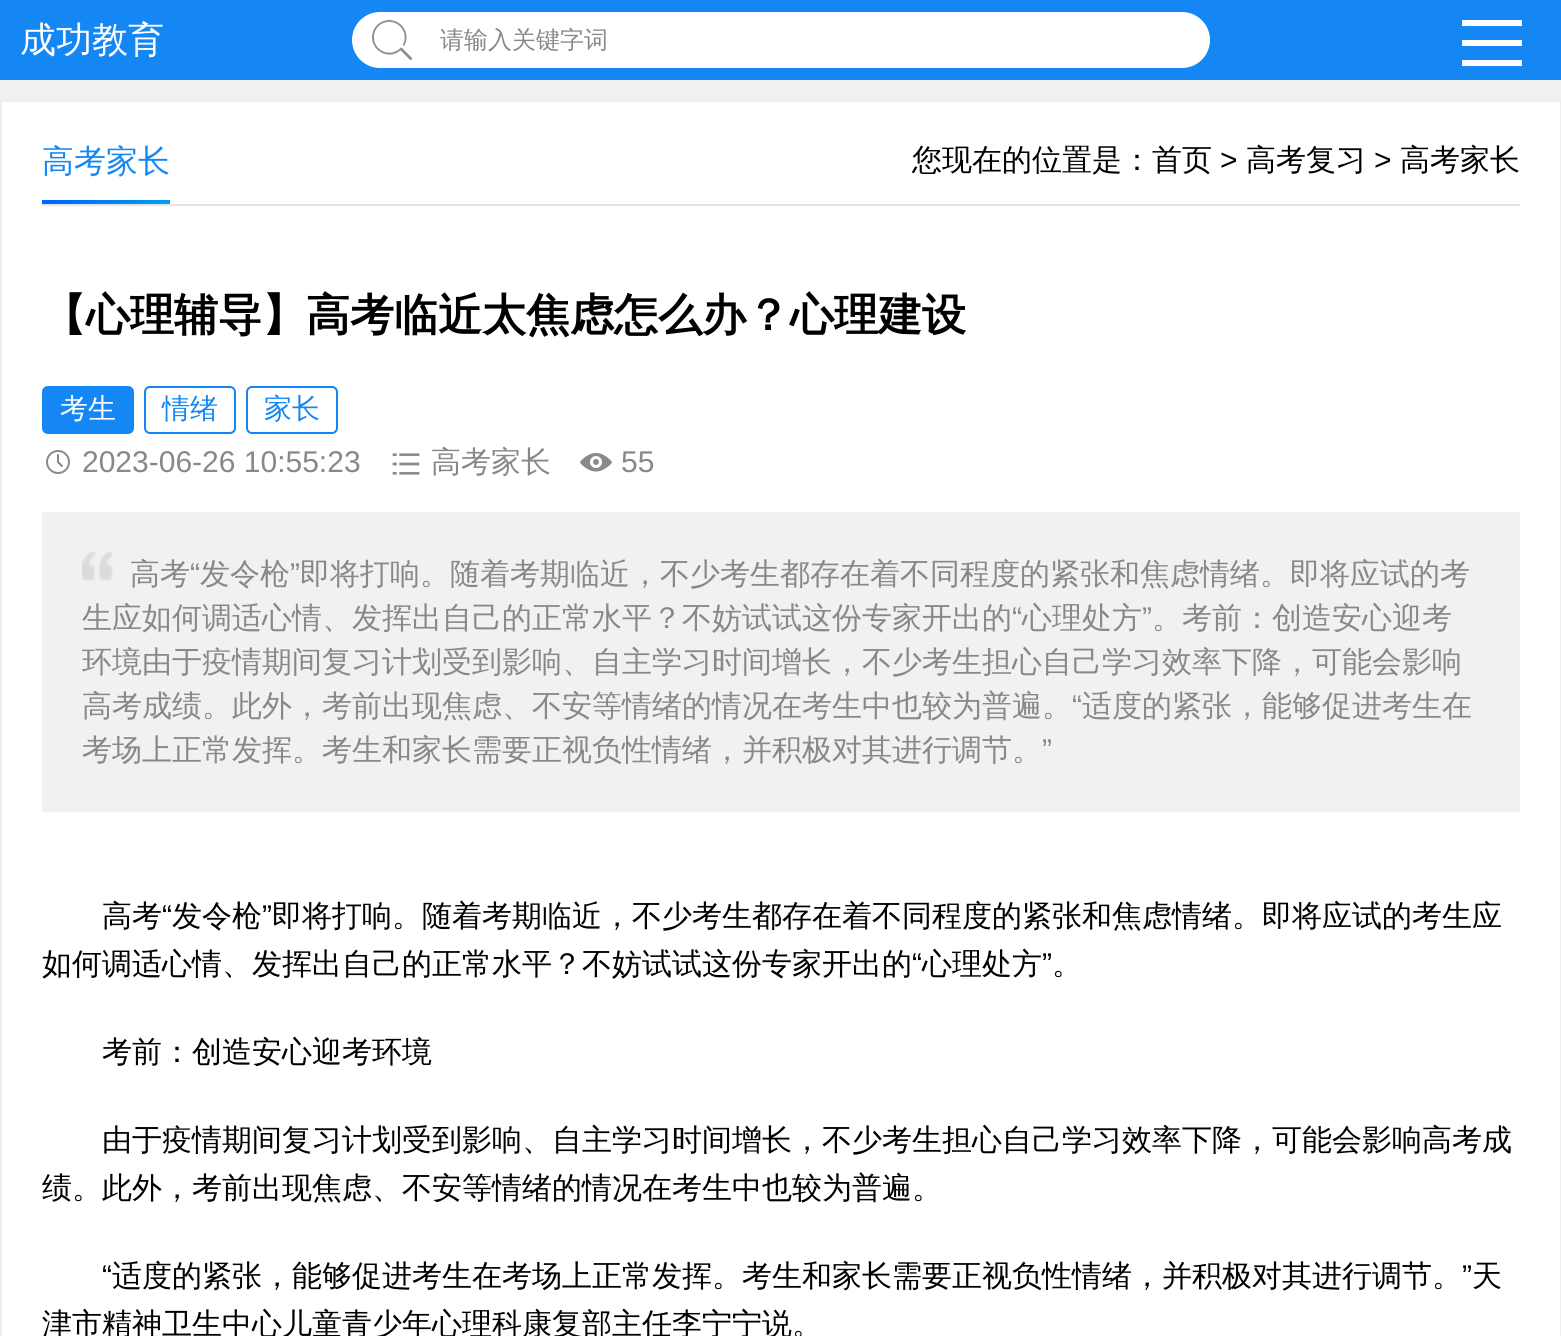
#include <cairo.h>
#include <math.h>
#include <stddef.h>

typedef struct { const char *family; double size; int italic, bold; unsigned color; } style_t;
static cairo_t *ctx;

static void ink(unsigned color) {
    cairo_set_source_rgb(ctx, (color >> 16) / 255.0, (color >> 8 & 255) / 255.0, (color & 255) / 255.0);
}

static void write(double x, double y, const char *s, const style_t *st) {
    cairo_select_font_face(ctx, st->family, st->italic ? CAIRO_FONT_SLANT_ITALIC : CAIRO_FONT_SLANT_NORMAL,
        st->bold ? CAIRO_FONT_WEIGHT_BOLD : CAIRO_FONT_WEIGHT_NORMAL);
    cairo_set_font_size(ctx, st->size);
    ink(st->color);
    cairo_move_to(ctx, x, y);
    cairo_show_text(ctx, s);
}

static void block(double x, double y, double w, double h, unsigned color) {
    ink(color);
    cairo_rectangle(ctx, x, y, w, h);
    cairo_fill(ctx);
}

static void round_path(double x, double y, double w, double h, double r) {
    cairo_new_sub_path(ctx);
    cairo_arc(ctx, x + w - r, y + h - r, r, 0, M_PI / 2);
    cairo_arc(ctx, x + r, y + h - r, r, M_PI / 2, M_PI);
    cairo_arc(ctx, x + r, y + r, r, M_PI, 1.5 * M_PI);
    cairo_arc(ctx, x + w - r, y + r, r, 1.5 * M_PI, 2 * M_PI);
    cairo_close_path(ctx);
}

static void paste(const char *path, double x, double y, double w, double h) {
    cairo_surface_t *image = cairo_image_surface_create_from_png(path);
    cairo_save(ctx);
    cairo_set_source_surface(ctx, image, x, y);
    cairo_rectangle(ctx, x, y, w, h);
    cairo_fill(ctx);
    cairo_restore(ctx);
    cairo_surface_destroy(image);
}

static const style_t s1 = {"WenQuanYi Zen Hei Medium", 36, 0, 0, 0xffffff};
static const style_t s2 = {"WenQuanYi Zen Hei Medium", 24, 0, 0, 0x888888};
static const style_t s3 = {"WenQuanYi Zen Hei Medium", 32, 0, 0, 0x1487f4};
static const style_t s4 = {"WenQuanYi Zen Hei Medium", 30, 0, 0, 0x000000};
static const style_t s5 = {"Liberation Sans", 30, 0, 0, 0x000000};
static const style_t s6 = {"WenQuanYi Zen Hei", 44, 0, 1, 0x000000};
static const style_t s7 = {"WenQuanYi Zen Hei Medium", 28, 0, 0, 0xffffff};
static const style_t s8 = {"WenQuanYi Zen Hei Medium", 28, 0, 0, 0x1487f4};
static const style_t s9 = {"Liberation Sans", 30, 0, 0, 0x888888};
static const style_t s10 = {"WenQuanYi Zen Hei Medium", 30, 0, 0, 0x888888};

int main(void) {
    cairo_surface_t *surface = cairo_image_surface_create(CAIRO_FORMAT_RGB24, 1561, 1336);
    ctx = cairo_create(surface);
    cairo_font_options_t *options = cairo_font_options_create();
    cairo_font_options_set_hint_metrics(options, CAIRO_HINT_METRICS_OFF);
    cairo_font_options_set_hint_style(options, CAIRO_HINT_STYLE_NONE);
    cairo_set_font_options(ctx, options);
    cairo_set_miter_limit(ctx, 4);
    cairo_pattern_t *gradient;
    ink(0xf1f1f1);
    cairo_paint(ctx);
    block(0, 0, 1561, 80, 0x1487f4);
    write(20, 52, "成功教育", &s1);
    block(1462, 40, 60, 6, 0xffffff);
    block(1462, 20, 60, 6, 0xfffefe);
    block(1462, 60, 60, 6, 0xfffefe);
    ink(0xffffff);
    round_path(352, 12, 858, 56, 28);
    cairo_fill(ctx);
    paste("pic1.png", 372, 19, 40, 41);
    write(440, 48, "请输入关键字词", &s2);
    ink(0xffffff);
    cairo_rectangle(ctx, 1, 101, 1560, 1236);
    cairo_fill_preserve(ctx);
    ink(0xeeeeee);
    cairo_stroke(ctx);
    block(42, 204, 1478, 2, 0xe4e3e3);
    write(42, 172, "高考家长", &s3);
    gradient = cairo_pattern_create_linear(42, 202, 170, 202);
    cairo_pattern_add_color_stop_rgba(gradient, 0, 0, 0.384, 1, 1);
    cairo_pattern_add_color_stop_rgba(gradient, 1, 0, 0.627, 0.925, 1);
    cairo_set_source(ctx, gradient);
    cairo_pattern_destroy(gradient);
    cairo_rectangle(ctx, 42, 200, 128, 4);
    cairo_fill(ctx);
    write(912, 170, "您现在的位置是：首页", &s4);
    write(1220, 170, ">", &s5);
    write(1246, 170, "高考复习", &s4);
    write(1374, 170, ">", &s5);
    write(1400, 170, "高考家长", &s4);
    write(42, 330, "【心理辅导】高考临近太焦虑怎么办？心理建设", &s6);
    ink(0x1487f4);
    round_path(43, 387, 90, 46, 5);
    cairo_fill_preserve(ctx);
    cairo_stroke(ctx);
    write(60, 418, "考生", &s7);
    round_path(145, 387, 90, 46, 5);
    ink(0x1487f4);
    cairo_stroke(ctx);
    write(162, 418, "情绪", &s8);
    round_path(247, 387, 90, 46, 5);
    cairo_stroke(ctx);
    write(264, 418, "家长", &s8);
    paste("pic2.png", 46, 450, 24, 24);
    write(82, 472, "2023-06-26 10:55:23", &s9);
    paste("pic3.png", 392, 453, 28, 22);
    write(431, 472, "高考家长", &s10);
    paste("pic4.png", 580, 453, 32, 19);
    write(621, 472, "55", &s9);
    block(42, 512, 1478, 300, 0xf1f1f1);
    paste("pic5.png", 82, 552, 31, 29);
    write(130, 584, "高考", &s10);
    write(190, 584, "“", &s9);
    write(200, 584, "发令枪", &s10);
    write(290, 584, "”", &s9);
    write(300, 584, "即将打响。随着考期临近，不少考生都存在着不同程度的紧张和焦虑情绪。即将应试的考", &s10);
    write(82, 628, "生应如何调适心情、发挥出自己的正常水平？不妨试试这份专家开出的", &s10);
    write(1012, 628, "“", &s9);
    write(1022, 628, "心理处方", &s10);
    write(1142, 628, "”", &s9);
    write(1152, 628, "。考前：创造安心迎考", &s10);
    write(82, 672, "环境由于疫情期间复习计划受到影响、自主学习时间增长，不少考生担心自己学习效率下降，可能会影响", &s10);
    write(82, 716, "高考成绩。此外，考前出现焦虑、不安等情绪的情况在考生中也较为普遍。", &s10);
    write(1072, 716, "“", &s9);
    write(1082, 716, "适度的紧张，能够促进考生在", &s10);
    write(82, 760, "考场上正常发挥。考生和家长需要正视负性情绪，并积极对其进行调节。", &s10);
    write(1042, 760, "”", &s9);
    write(102, 926, "高考", &s4);
    write(162, 926, "“", &s5);
    write(172, 926, "发令枪", &s4);
    write(262, 926, "”", &s5);
    write(272, 926, "即将打响。随着考期临近，不少考生都存在着不同程度的紧张和焦虑情绪。即将应试的考生应", &s4);
    write(42, 974, "如何调适心情、发挥出自己的正常水平？不妨试试这份专家开出的", &s4);
    write(912, 974, "“", &s5);
    write(922, 974, "心理处方", &s4);
    write(1042, 974, "”", &s5);
    write(1052, 974, "。", &s4);
    write(102, 1062, "考前：创造安心迎考环境", &s4);
    write(102, 1150, "由于疫情期间复习计划受到影响、自主学习时间增长，不少考生担心自己学习效率下降，可能会影响高考成", &s4);
    write(42, 1198, "绩。此外，考前出现焦虑、不安等情绪的情况在考生中也较为普遍。", &s4);
    write(102, 1286, "“", &s5);
    write(112, 1286, "适度的紧张，能够促进考生在考场上正常发挥。考生和家长需要正视负性情绪，并积极对其进行调节。", &s4);
    write(1462, 1286, "”", &s5);
    write(1472, 1286, "天", &s4);
    write(42, 1334, "津市精神卫生中心儿童青少年心理科康复部主任李宁宁说。", &s4);
    cairo_surface_write_to_png(surface, "screenshot.png");
    cairo_font_options_destroy(options);
    cairo_destroy(ctx);
    cairo_surface_destroy(surface);
    return 0;
}
